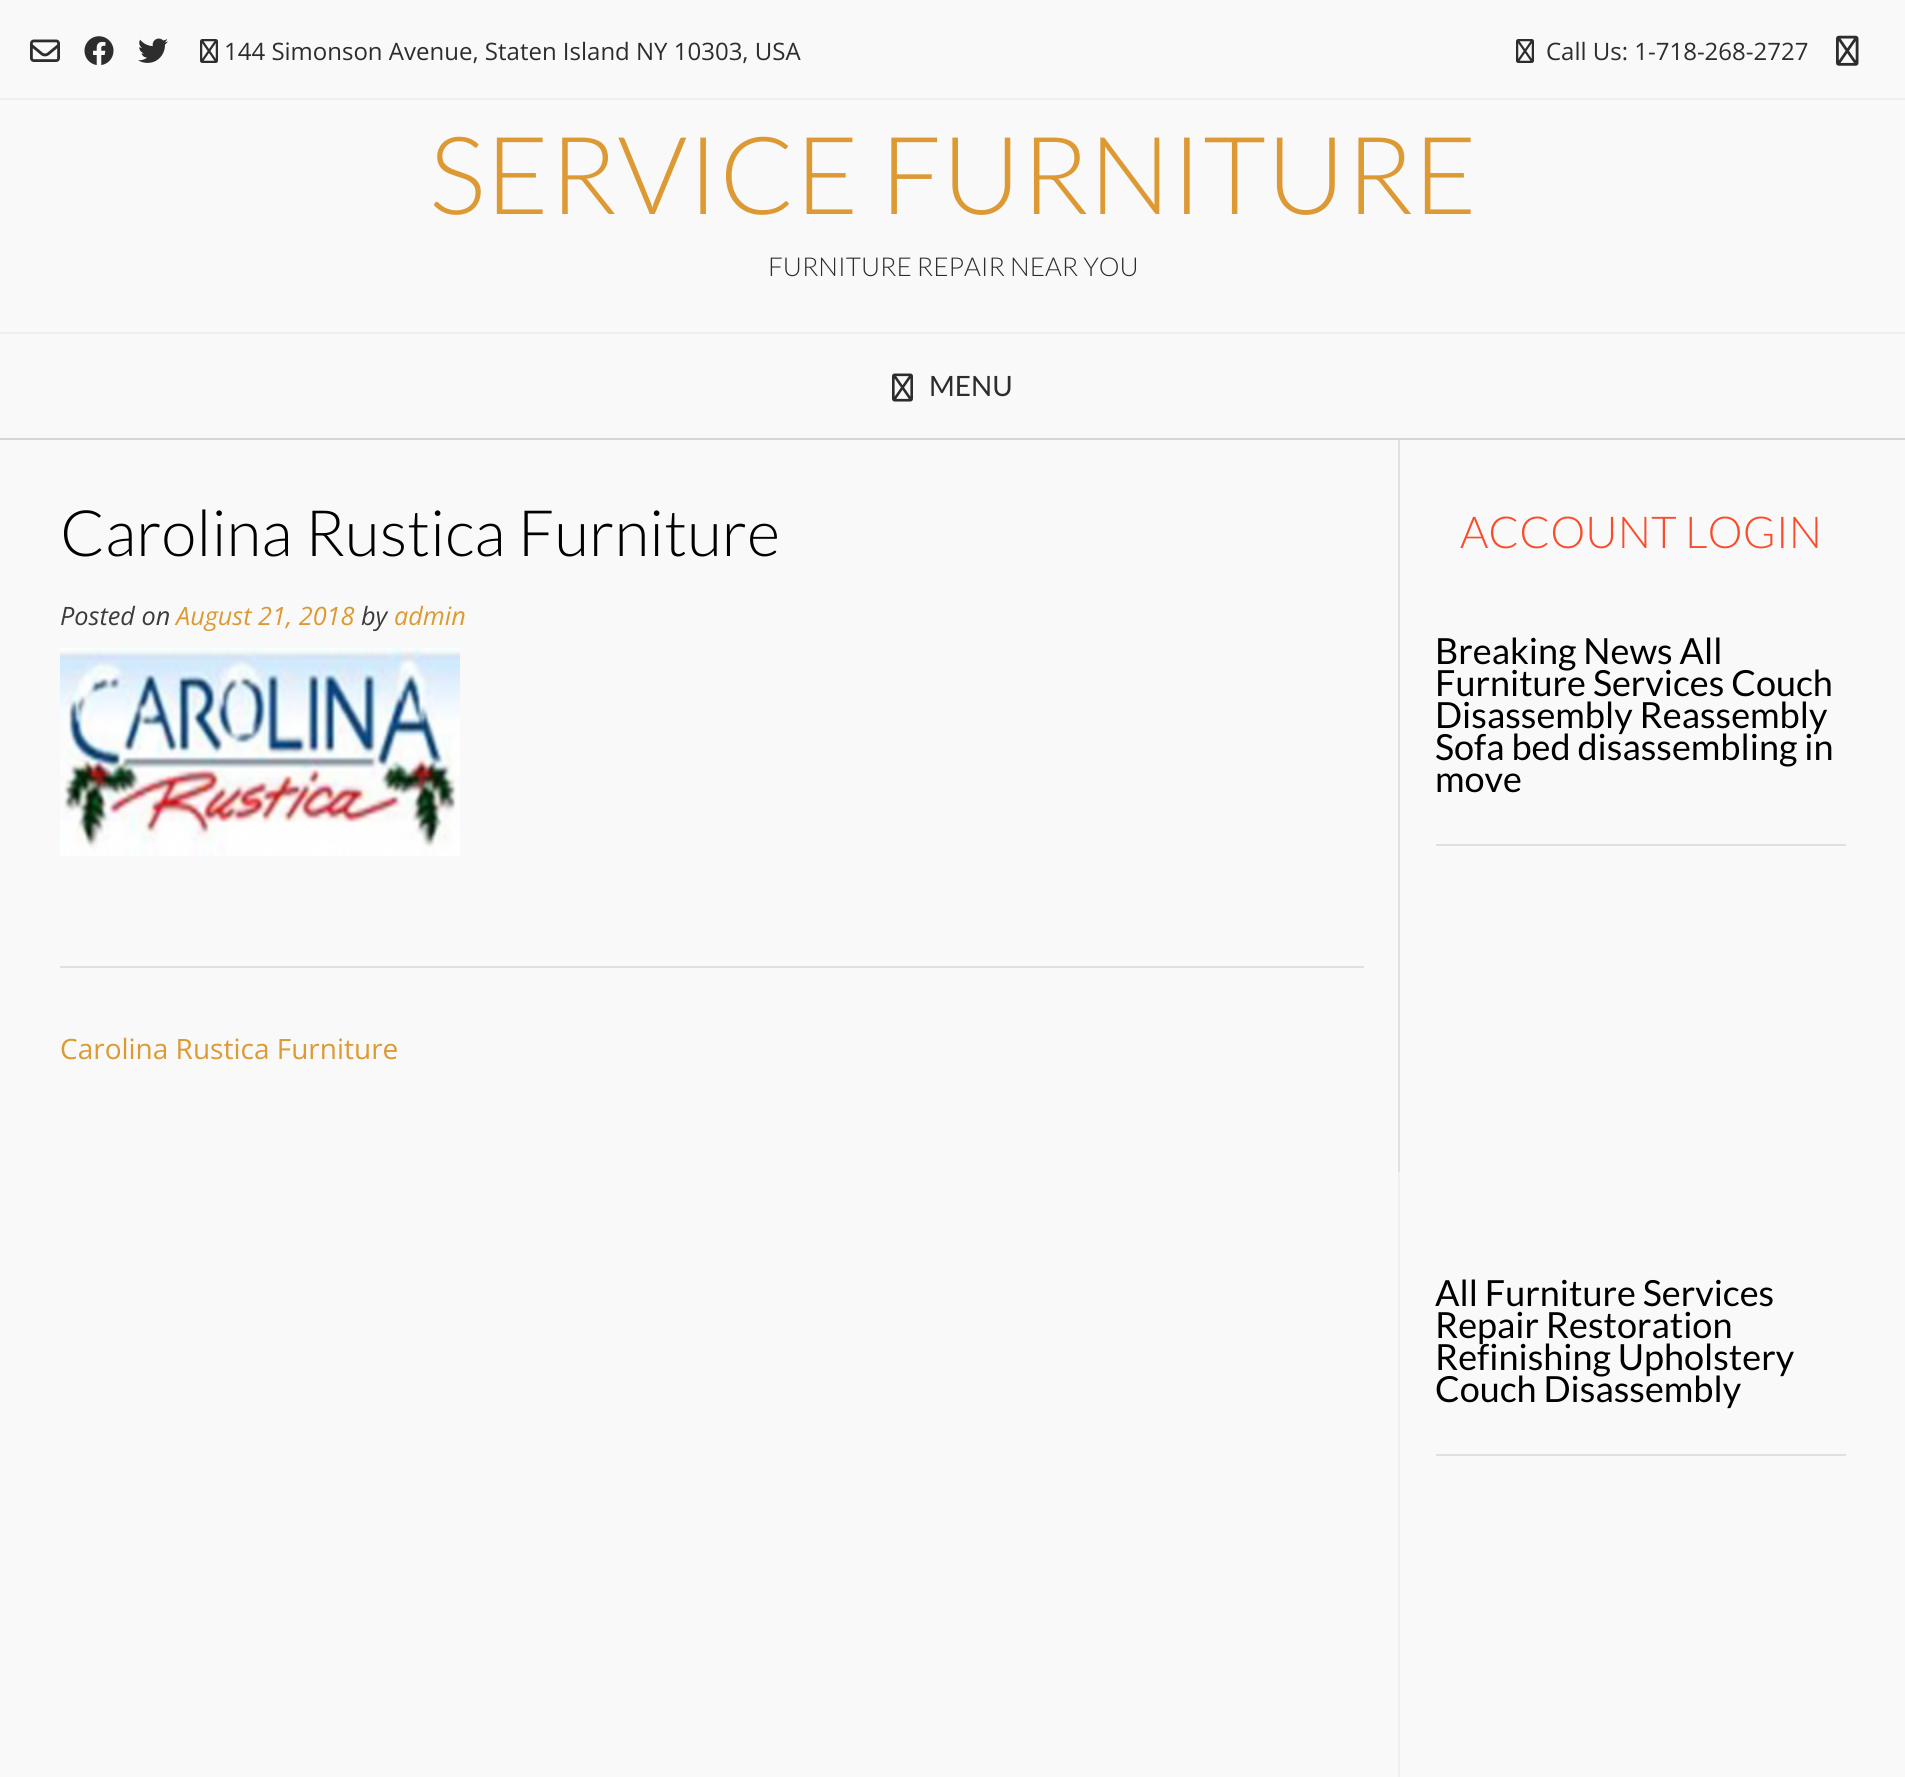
#include <cairo.h>
#include <math.h>
#include <stddef.h>

typedef struct { const char *family; double size; int italic, bold; unsigned color; } style_t;
static cairo_t *ctx;

static void ink(unsigned color) {
    cairo_set_source_rgb(ctx, (color >> 16) / 255.0, (color >> 8 & 255) / 255.0, (color & 255) / 255.0);
}

static void write(double x, double y, const char *s, const style_t *st) {
    cairo_select_font_face(ctx, st->family, st->italic ? CAIRO_FONT_SLANT_ITALIC : CAIRO_FONT_SLANT_NORMAL,
        st->bold ? CAIRO_FONT_WEIGHT_BOLD : CAIRO_FONT_WEIGHT_NORMAL);
    cairo_set_font_size(ctx, st->size);
    ink(st->color);
    cairo_move_to(ctx, x, y);
    cairo_show_text(ctx, s);
}

static void block(double x, double y, double w, double h, unsigned color) {
    ink(color);
    cairo_rectangle(ctx, x, y, w, h);
    cairo_fill(ctx);
}

static void paste(const char *path, double x, double y, double w, double h) {
    cairo_surface_t *image = cairo_image_surface_create_from_png(path);
    cairo_save(ctx);
    cairo_set_source_surface(ctx, image, x, y);
    cairo_rectangle(ctx, x, y, w, h);
    cairo_fill(ctx);
    cairo_restore(ctx);
    cairo_surface_destroy(image);
}

static const style_t s1 = {"Open Sans", 24, 0, 0, 0x2d2d2d};
static const style_t s2 = {"Lato Light", 108, 0, 0, 0xdd9933};
static const style_t s3 = {"Lato Light", 26, 0, 0, 0x2d2d2d};
static const style_t s4 = {"Lato", 28, 0, 0, 0x2d2d2d};
static const style_t s5 = {"Lato Light", 64, 0, 0, 0x000000};
static const style_t s6 = {"Open Sans", 25.25, 1, 0, 0x3c3c3c};
static const style_t s7 = {"Open Sans", 25.25, 1, 0, 0xdd9933};
static const style_t s8 = {"Open Sans", 28, 0, 0, 0xdd9933};
static const style_t s9 = {"Lato Light", 44, 0, 0, 0xfa4c2a};
static const style_t s10 = {"Lato", 36, 0, 0, 0x000000};

int main(void) {
    cairo_surface_t *surface = cairo_image_surface_create(CAIRO_FORMAT_RGB24, 1905, 1777);
    ctx = cairo_create(surface);
    cairo_font_options_t *options = cairo_font_options_create();
    cairo_font_options_set_hint_metrics(options, CAIRO_HINT_METRICS_OFF);
    cairo_font_options_set_hint_style(options, CAIRO_HINT_STYLE_NONE);
    cairo_set_font_options(ctx, options);
    cairo_set_miter_limit(ctx, 4);
    ink(0xf9f9f9);
    cairo_paint(ctx);
    block(0, 438, 1905, 2, 0xd6d6d6);
    block(0, 98, 1905, 2, 0xefefef);
    paste("pic1.png", 30, 39, 30, 23);
    paste("pic2.png", 84, 36, 30, 29);
    paste("pic3.png", 138, 38, 30, 25);
    paste("pic4.png", 200, 39, 18, 24);
    write(224, 60, "144 Simonson Avenue, Staten Island NY 10303, USA", &s1);
    paste("pic4.png", 1516, 39, 18, 24);
    write(1546, 60, "Call Us: 1-718-268-2727", &s1);
    paste("pic5.png", 1836, 35, 23, 31);
    write(429, 214, "SERVICE FURNITURE", &s2);
    write(768, 276, "FURNITURE REPAIR NEAR YOU", &s3);
    block(0, 332, 1905, 2, 0xefefef);
    paste("pic6.png", 892, 373, 21, 29);
    write(929, 396, "MENU", &s4);
    block(1398, 440, 2, 732, 0xe1e1e1);
    block(60, 966, 1304, 2, 0xe0e0e0);
    write(60, 556, "Carolina Rustica Furniture", &s5);
    write(60, 625, "Posted on", &s6);
    write(176, 625, "August 21, 2018", &s7);
    write(361, 625, "by", &s6);
    write(394, 625, "admin", &s7);
    paste("pic7.png", 60, 648, 400, 208);
    write(60, 1059, "Carolina Rustica Furniture", &s8);
    block(1398, 1172, 2, 605, 0xefefef);
    write(1460, 548, "ACCOUNT LOGIN", &s9);
    block(1436, 844, 410, 2, 0xe0e0e0);
    write(1435, 664, "Breaking News All", &s10);
    write(1435, 696, "Furniture Services Couch", &s10);
    write(1435, 728, "Disassembly Reassembly", &s10);
    write(1435, 760, "Sofa bed disassembling in", &s10);
    write(1435, 792, "move", &s10);
    block(1436, 1454, 410, 2, 0xe0e0e0);
    write(1435, 1306, "All Furniture Services", &s10);
    write(1435, 1338, "Repair Restoration", &s10);
    write(1435, 1370, "Refinishing Upholstery", &s10);
    write(1435, 1402, "Couch Disassembly", &s10);
    cairo_surface_write_to_png(surface, "screenshot.png");
    cairo_font_options_destroy(options);
    cairo_destroy(ctx);
    cairo_surface_destroy(surface);
    return 0;
}
